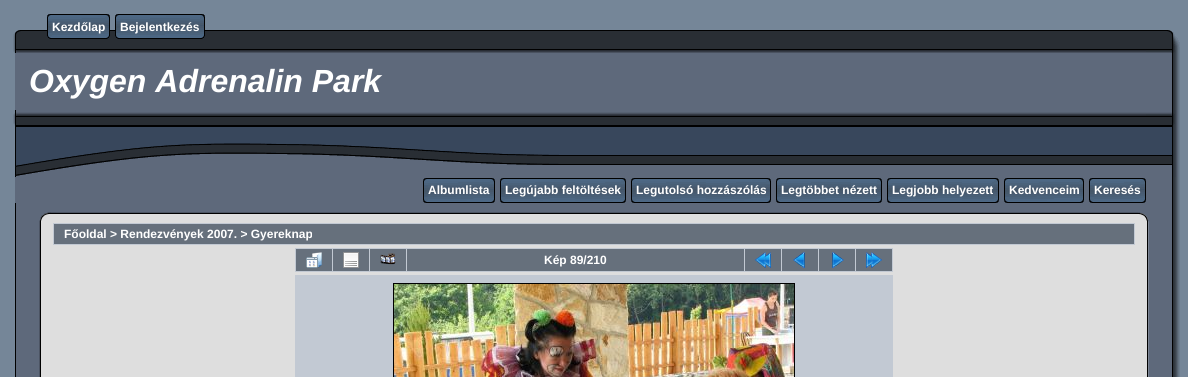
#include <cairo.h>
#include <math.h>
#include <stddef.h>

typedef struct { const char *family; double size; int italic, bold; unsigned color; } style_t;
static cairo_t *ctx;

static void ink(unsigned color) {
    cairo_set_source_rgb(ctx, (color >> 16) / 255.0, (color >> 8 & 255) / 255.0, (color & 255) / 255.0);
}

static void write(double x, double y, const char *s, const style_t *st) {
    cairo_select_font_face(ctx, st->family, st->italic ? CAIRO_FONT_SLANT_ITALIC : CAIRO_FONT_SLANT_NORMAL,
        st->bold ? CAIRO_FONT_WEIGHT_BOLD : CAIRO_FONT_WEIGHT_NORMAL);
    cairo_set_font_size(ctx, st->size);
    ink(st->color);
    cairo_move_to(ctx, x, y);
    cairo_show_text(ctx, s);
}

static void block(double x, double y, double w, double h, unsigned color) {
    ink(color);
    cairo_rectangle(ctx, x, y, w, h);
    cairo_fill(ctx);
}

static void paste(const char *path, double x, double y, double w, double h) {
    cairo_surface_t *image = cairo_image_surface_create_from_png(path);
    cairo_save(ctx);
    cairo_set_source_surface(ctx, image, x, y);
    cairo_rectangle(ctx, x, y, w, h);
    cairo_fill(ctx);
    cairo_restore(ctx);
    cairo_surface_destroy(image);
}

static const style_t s1 = {"Liberation Sans", 12, 0, 1, 0xffffff};
static const style_t s2 = {"Liberation Sans", 32, 1, 1, 0xffffff};

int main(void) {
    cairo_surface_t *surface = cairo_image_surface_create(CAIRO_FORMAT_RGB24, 1188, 377);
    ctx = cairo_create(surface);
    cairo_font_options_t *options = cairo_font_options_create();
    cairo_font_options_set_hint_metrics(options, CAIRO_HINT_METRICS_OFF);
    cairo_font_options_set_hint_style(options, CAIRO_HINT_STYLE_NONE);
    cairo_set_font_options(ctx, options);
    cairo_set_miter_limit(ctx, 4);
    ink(0x758698);
    cairo_paint(ctx);
    paste("pic1.png", 42, 30, 1104, 23);
    paste("pic2.png", 47, 14, 5, 25);
    paste("pic3.png", 52, 14, 53, 25);
    write(52, 31, "Kezdőlap", &s1);
    paste("pic4.png", 105, 14, 5, 25);
    paste("pic2.png", 115, 14, 5, 25);
    paste("pic5.png", 120, 14, 80, 25);
    write(120, 31, "Bejelentkezés", &s1);
    paste("pic4.png", 200, 14, 5, 25);
    paste("pic6.png", 13, 30, 29, 23);
    paste("pic7.png", 1146, 30, 34, 23);
    block(15, 53, 1157, 57, 0x5e697b);
    paste("pic8.png", 1172, 53, 8, 57);
    write(29, 92, "Oxygen Adrenalin Park", &s2);
    paste("pic9.png", 13, 110, 547, 67);
    paste("pic10.png", 560, 110, 586, 67);
    paste("pic11.png", 1146, 110, 34, 67);
    block(15, 177, 1131, 26, 0x5e697b);
    paste("pic12.png", 1146, 177, 34, 26);
    paste("pic13.png", 423, 178, 5, 25);
    paste("pic14.png", 428, 178, 62, 25);
    write(428, 194, "Albumlista", &s1);
    paste("pic15.png", 490, 178, 5, 25);
    paste("pic13.png", 500, 178, 5, 25);
    paste("pic16.png", 505, 178, 116, 25);
    write(505, 194, "Legújabb feltöltések", &s1);
    paste("pic15.png", 621, 178, 5, 25);
    paste("pic13.png", 631, 178, 5, 25);
    paste("pic17.png", 636, 178, 130, 25);
    write(636, 194, "Legutolsó hozzászólás", &s1);
    paste("pic15.png", 766, 178, 5, 25);
    paste("pic13.png", 776, 178, 5, 25);
    paste("pic18.png", 781, 178, 96, 25);
    write(781, 194, "Legtöbbet nézett", &s1);
    paste("pic15.png", 877, 178, 5, 25);
    paste("pic13.png", 887, 178, 5, 25);
    paste("pic19.png", 892, 178, 102, 25);
    write(892, 194, "Legjobb helyezett", &s1);
    paste("pic15.png", 994, 178, 5, 25);
    paste("pic13.png", 1004, 178, 5, 25);
    paste("pic20.png", 1009, 178, 70, 25);
    write(1009, 194, "Kedvenceim", &s1);
    paste("pic15.png", 1079, 178, 5, 25);
    paste("pic13.png", 1089, 178, 5, 25);
    paste("pic21.png", 1094, 178, 47, 25);
    write(1094, 194, "Keresés", &s1);
    paste("pic15.png", 1141, 178, 5, 25);
    paste("pic22.png", 15, 203, 27, 18);
    paste("pic23.png", 42, 203, 14, 18);
    paste("pic24.png", 56, 203, 1076, 18);
    paste("pic25.png", 1132, 203, 14, 18);
    paste("pic26.png", 1146, 203, 34, 18);
    paste("pic27.png", 15, 221, 27, 156);
    block(42, 221, 1104, 156, 0xdedede);
    block(53, 223, 1082, 22, 0xc2c9d3);
    block(54, 224, 1080, 20, 0x66707c);
    write(64, 238, "Főoldal > Rendezvények 2007. > Gyereknap", &s1);
    block(295, 248, 598, 24, 0xc2c9d3);
    block(296, 249, 36, 22, 0x66707c);
    paste("pic28.png", 306, 252, 16, 16);
    block(333, 249, 36, 22, 0x66707c);
    paste("pic29.png", 343, 252, 16, 16);
    block(370, 249, 36, 22, 0x66707c);
    paste("pic30.png", 380, 253, 16, 12);
    block(407, 249, 337, 22, 0x66707c);
    write(544, 264, "Kép 89/210", &s1);
    block(745, 249, 36, 22, 0x66707c);
    paste("pic31.png", 755, 252, 16, 16);
    block(782, 249, 36, 22, 0x66707c);
    paste("pic32.png", 793, 252, 12, 16);
    block(819, 249, 36, 22, 0x66707c);
    paste("pic33.png", 832, 252, 12, 16);
    block(856, 249, 36, 22, 0x66707c);
    paste("pic34.png", 866, 252, 16, 16);
    block(295, 275, 598, 102, 0xc2c9d3);
    cairo_rectangle(ctx, 393.5, 283.5, 401, 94);
    ink(0x000000);
    cairo_set_line_width(ctx, 1);
    cairo_stroke(ctx);
    paste("pic35.png", 394, 284, 400, 93);
    paste("pic36.png", 1146, 221, 34, 156);
    cairo_surface_write_to_png(surface, "screenshot.png");
    cairo_font_options_destroy(options);
    cairo_destroy(ctx);
    cairo_surface_destroy(surface);
    return 0;
}
